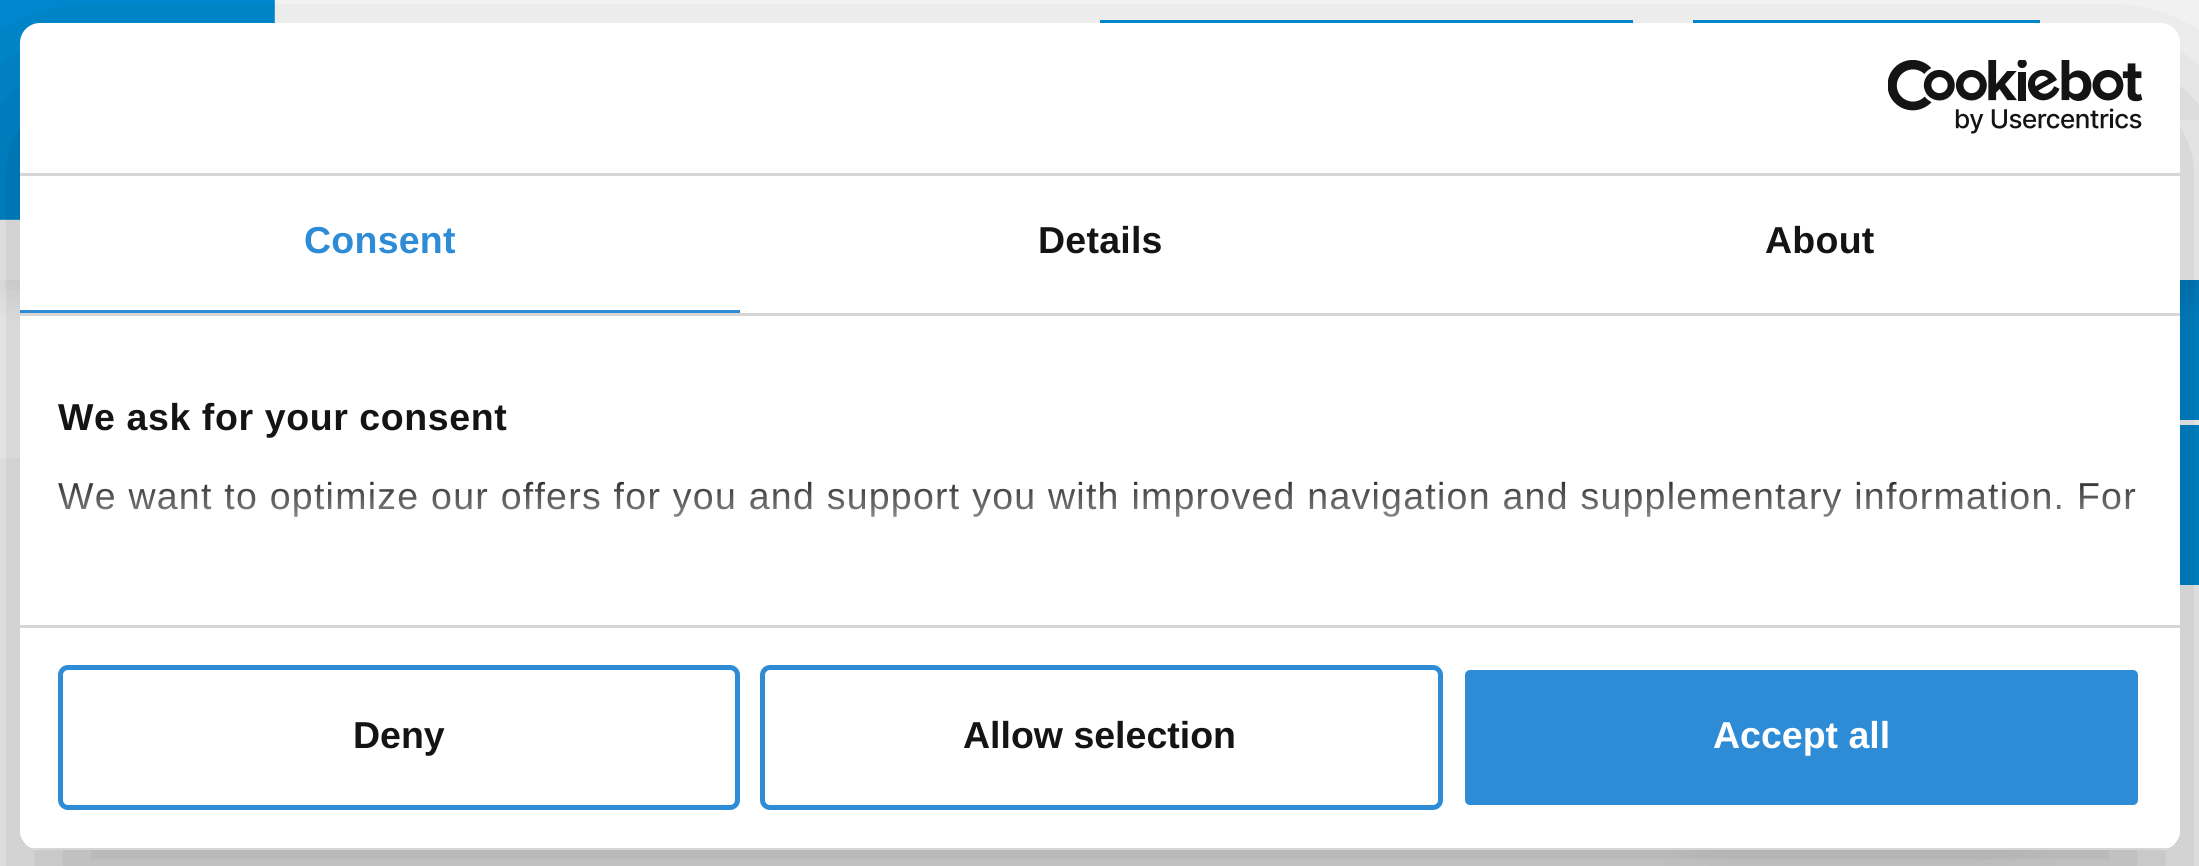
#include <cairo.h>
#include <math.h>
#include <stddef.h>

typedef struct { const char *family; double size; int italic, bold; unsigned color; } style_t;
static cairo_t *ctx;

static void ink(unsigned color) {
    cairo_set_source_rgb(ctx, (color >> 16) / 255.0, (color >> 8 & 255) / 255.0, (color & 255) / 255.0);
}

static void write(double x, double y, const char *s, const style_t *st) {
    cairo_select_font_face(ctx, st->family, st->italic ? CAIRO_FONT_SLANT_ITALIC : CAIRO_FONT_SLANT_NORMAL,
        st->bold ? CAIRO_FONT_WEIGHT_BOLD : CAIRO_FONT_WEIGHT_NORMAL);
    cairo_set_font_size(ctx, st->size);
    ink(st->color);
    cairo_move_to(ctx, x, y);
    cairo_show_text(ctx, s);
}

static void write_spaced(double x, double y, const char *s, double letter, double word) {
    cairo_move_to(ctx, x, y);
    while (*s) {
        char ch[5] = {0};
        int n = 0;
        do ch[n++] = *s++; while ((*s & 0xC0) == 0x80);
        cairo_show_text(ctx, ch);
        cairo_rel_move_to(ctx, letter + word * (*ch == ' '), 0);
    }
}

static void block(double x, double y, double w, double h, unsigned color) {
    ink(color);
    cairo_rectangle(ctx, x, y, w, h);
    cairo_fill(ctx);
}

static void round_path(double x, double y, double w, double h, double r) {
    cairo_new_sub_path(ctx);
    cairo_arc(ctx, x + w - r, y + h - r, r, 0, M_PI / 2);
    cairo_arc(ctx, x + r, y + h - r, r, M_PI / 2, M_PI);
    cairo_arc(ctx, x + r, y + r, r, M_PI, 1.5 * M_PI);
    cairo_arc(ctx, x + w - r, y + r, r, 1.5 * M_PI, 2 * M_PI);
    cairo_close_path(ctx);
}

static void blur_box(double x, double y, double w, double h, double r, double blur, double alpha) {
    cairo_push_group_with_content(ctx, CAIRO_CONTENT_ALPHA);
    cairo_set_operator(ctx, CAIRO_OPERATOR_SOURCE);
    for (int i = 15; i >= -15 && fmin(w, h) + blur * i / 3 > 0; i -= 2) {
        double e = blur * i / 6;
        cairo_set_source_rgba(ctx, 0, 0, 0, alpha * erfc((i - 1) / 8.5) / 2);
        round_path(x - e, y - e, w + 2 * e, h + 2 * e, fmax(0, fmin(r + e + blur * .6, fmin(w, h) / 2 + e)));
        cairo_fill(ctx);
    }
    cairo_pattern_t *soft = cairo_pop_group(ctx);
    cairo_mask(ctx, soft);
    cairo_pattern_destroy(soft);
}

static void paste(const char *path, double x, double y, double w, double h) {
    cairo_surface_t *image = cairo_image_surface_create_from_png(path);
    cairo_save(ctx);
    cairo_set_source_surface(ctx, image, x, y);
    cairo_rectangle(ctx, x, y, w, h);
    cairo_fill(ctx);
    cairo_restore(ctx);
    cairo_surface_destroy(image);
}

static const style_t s1 = {"Liberation Sans", 37.5, 0, 1, 0x141414};
static const style_t s2 = {"Liberation Sans", 37.5, 0, 1, 0xffffff};

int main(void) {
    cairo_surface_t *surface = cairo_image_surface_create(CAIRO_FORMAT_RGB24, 2199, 866);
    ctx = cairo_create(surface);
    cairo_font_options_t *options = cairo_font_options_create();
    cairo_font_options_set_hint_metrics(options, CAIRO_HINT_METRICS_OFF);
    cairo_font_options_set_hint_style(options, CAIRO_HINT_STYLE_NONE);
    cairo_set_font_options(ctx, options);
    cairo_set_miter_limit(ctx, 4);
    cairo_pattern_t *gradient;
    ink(0xffffff);
    cairo_paint(ctx);
    block(2180, 280, 19, 140, 0x008ad2);
    ink(0x000000);
    blur_box(0, 13, 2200, 280, 0, 19, 0.1);
    block(0, 0, 2199, 280, 0xf8f8f8);
    paste("pic1.png", 0, 0, 275, 220);
    block(1100, 20, 533, 3, 0x008ad2);
    block(1693, 20, 347, 3, 0x008ad2);
    block(2180, 120, 19, 160, 0xffffff);
    block(0, 458, 2199, 408, 0xf8f8f8);
    block(2180, 425, 19, 160, 0x008ad2);
    cairo_save(ctx);
    cairo_set_fill_rule(ctx, CAIRO_FILL_RULE_EVEN_ODD);
    cairo_new_path(ctx);
    cairo_move_to(ctx, 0, 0);
    cairo_line_to(ctx, 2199, 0);
    cairo_line_to(ctx, 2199, 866);
    cairo_line_to(ctx, 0, 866);
    cairo_close_path(ctx);
    cairo_move_to(ctx, 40, 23);
    cairo_line_to(ctx, 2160, 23);
    cairo_curve_to(ctx, 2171, 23, 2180, 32, 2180, 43);
    cairo_line_to(ctx, 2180, 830);
    cairo_curve_to(ctx, 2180, 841, 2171, 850, 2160, 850);
    cairo_line_to(ctx, 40, 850);
    cairo_curve_to(ctx, 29, 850, 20, 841, 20, 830);
    cairo_line_to(ctx, 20, 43);
    cairo_curve_to(ctx, 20, 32, 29, 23, 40, 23);
    cairo_close_path(ctx);
    cairo_clip(ctx);
    ink(0x000000);
    blur_box(20, 103, 2160, 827, 20, 85, 0.3);
    cairo_restore(ctx);
    ink(0x000000);
    blur_box(1678, 698, 362, 160, 80, 40, 0.06);
    ink(0xffffff);
    round_path(20, 23, 2160, 827, 20);
    cairo_fill(ctx);
    block(20, 173, 2160, 3, 0xd6d6d6);
    paste("pic2.png", 1888, 60, 255, 74);
    block(20, 313, 2160, 3, 0xd6d6d6);
    block(20, 310, 720, 3, 0x2e8bd5);
    cairo_select_font_face(ctx, "Liberation Sans", CAIRO_FONT_SLANT_NORMAL, CAIRO_FONT_WEIGHT_BOLD);
    cairo_set_font_size(ctx, 37.5);
    write_spaced(304, 253, "Consent", 0.25, 0);
    ink(0x141414);
    write_spaced(1038, 253, "Details", 0.25, 0);
    write_spaced(1765, 253, "About", 0.25, 0);
    block(20, 625, 2160, 3, 0xd6d6d6);
    ink(0x141414);
    write_spaced(58, 430, "We ask for your consent", 0.6, 0);
    cairo_select_font_face(ctx, "Liberation Sans", CAIRO_FONT_SLANT_NORMAL, CAIRO_FONT_WEIGHT_NORMAL);
    write_spaced(58, 509, "We want to optimize our offers for you and support you with improved navigation and supplementary information. For", 1.25, 0);
    gradient = cairo_pattern_create_linear(1084, 624, 1084, 469);
    cairo_pattern_add_color_stop_rgba(gradient, 0, 1, 1, 1, 1);
    cairo_pattern_add_color_stop_rgba(gradient, 0.5, 1, 1, 1, 0.8);
    cairo_pattern_add_color_stop_rgba(gradient, 1, 1, 1, 1, 0);
    cairo_set_source(ctx, gradient);
    cairo_pattern_destroy(gradient);
    cairo_rectangle(ctx, 57, 481, 2078, 36);
    cairo_fill(ctx);
    cairo_save(ctx);
    round_path(20, 23, 2160, 827, 20);
    cairo_clip(ctx);
    block(31, 848, 2138, 2, 0xd6d6d6);
    cairo_restore(ctx);
    round_path(60.5, 667.5, 677, 140, 7.5);
    ink(0x2e8bd5);
    cairo_set_line_width(ctx, 5);
    cairo_stroke(ctx);
    write(353, 748, "Deny", &s1);
    round_path(762.5, 667.5, 678, 140, 7.5);
    ink(0x2e8bd5);
    cairo_stroke(ctx);
    write(963, 748, "Allow selection", &s1);
    ink(0x2e8bd5);
    round_path(1462.5, 667.5, 678, 140, 7.5);
    cairo_fill_preserve(ctx);
    ink(0xffffff);
    cairo_stroke(ctx);
    write(1713, 748, "Accept all", &s2);
    cairo_surface_write_to_png(surface, "screenshot.png");
    cairo_font_options_destroy(options);
    cairo_destroy(ctx);
    cairo_surface_destroy(surface);
    return 0;
}
